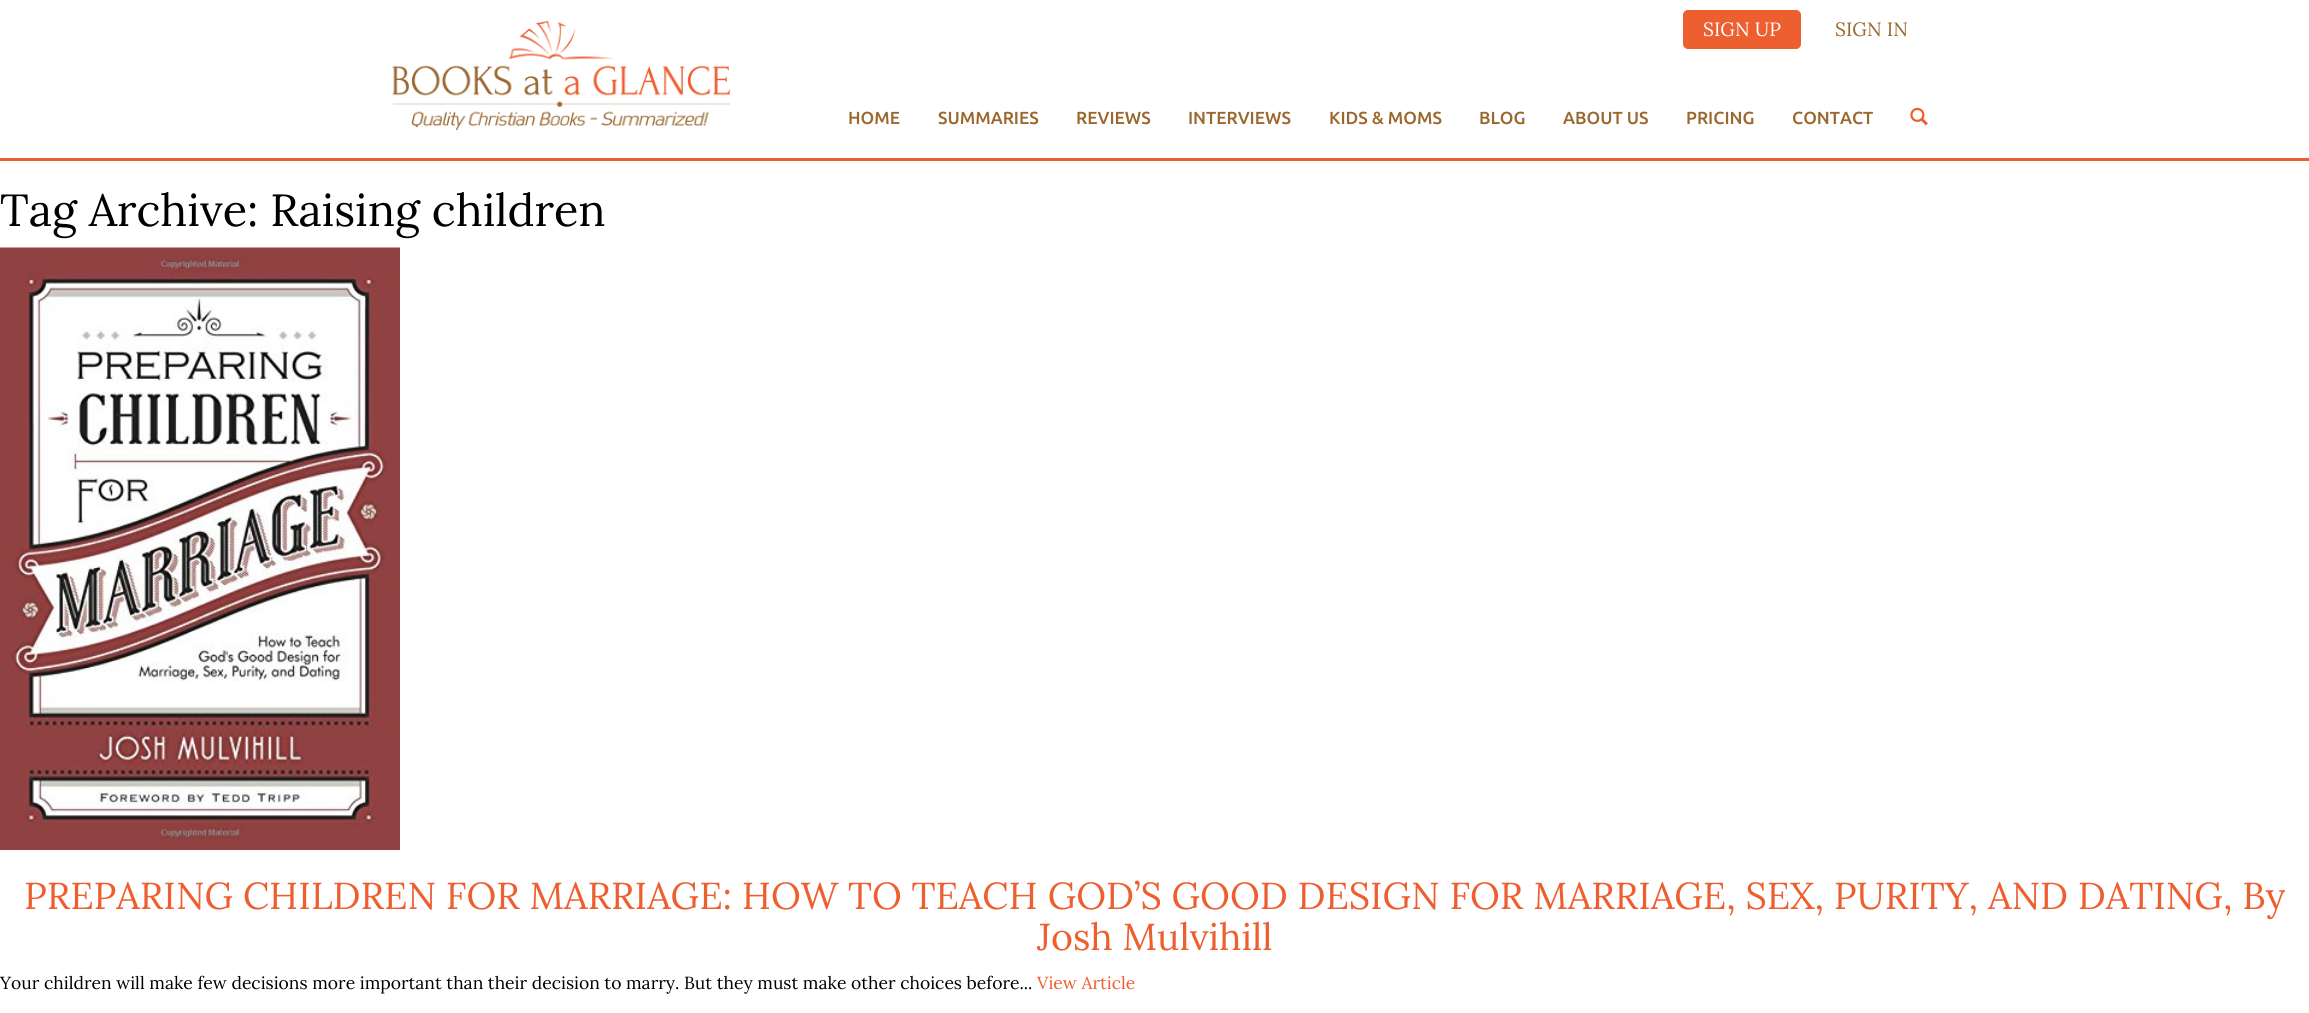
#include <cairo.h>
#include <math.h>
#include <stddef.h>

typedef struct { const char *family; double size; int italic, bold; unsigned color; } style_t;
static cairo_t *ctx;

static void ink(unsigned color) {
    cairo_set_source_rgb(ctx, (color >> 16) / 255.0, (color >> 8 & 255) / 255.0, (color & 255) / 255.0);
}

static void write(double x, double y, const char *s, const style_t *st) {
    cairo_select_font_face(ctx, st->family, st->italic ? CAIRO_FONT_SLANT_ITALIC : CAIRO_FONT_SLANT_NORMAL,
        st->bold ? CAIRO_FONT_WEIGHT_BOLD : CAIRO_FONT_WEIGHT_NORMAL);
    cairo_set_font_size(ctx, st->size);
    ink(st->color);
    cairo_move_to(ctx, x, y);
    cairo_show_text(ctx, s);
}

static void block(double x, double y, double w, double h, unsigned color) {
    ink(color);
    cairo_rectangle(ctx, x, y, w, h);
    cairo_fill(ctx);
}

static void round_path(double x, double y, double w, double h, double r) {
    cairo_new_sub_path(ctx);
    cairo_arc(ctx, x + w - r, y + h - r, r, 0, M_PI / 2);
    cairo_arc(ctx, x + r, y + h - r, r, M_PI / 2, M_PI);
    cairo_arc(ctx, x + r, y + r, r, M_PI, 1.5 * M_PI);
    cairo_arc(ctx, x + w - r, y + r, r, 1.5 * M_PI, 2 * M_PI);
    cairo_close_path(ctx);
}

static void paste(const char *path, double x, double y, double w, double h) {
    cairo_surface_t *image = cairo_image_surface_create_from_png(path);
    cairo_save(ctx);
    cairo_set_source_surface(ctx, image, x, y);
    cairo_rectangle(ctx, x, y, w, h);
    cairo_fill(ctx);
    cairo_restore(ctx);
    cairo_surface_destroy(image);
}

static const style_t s1 = {"Lora", 19.25, 0, 0, 0xffffff};
static const style_t s2 = {"Lora", 19.25, 0, 0, 0x9a672e};
static const style_t s3 = {"Ubuntu Medium", 17.5, 0, 0, 0x9a672e};
static const style_t s4 = {"Lora", 45, 0, 0, 0x000000};
static const style_t s5 = {"Lora", 37.5, 0, 0, 0xee5f30};
static const style_t s6 = {"Lora", 17.5, 0, 0, 0x000000};
static const style_t s7 = {"Lora", 17.5, 0, 0, 0xee5f30};

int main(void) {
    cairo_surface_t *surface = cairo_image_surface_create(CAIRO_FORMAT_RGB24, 2309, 1013);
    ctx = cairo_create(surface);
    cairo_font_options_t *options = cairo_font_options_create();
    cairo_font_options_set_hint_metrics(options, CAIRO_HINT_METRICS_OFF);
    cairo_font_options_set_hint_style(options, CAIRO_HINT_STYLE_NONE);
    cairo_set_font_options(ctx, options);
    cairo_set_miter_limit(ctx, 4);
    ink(0xffffff);
    cairo_paint(ctx);
    block(0, 158, 2309, 3, 0xee5f30);
    round_path(1683.5, 10.5, 117, 38, 4.5);
    cairo_fill_preserve(ctx);
    cairo_set_line_width(ctx, 1);
    cairo_stroke(ctx);
    write(1703, 36, "SIGN UP", &s1);
    write(1835, 36, "SIGN IN", &s2);
    paste("pic1.png", 392, 20, 338, 110);
    write(848, 124, "HOME", &s3);
    write(938, 124, "SUMMARIES", &s3);
    write(1076, 124, "REVIEWS", &s3);
    write(1188, 124, "INTERVIEWS", &s3);
    write(1329, 124, "KIDS & MOMS", &s3);
    write(1479, 124, "BLOG", &s3);
    write(1563, 124, "ABOUT US", &s3);
    write(1686, 124, "PRICING", &s3);
    write(1792, 124, "CONTACT", &s3);
    paste("pic2.png", 1910, 107, 18, 19);
    write(0, 226, "Tag Archive: Raising children", &s4);
    paste("pic3.png", 0, 247, 400, 603);
    write(24, 909, "PREPARING CHILDREN FOR MARRIAGE: HOW TO TEACH GOD’S GOOD DESIGN FOR MARRIAGE, SEX, PURITY, AND DATING, By", &s5);
    write(1037, 950, "Josh Mulvihill", &s5);
    write(0, 989, "Your children will make few decisions more important than their decision to marry. But they must make other choices before...", &s6);
    write(1037, 989, "View Article", &s7);
    cairo_surface_write_to_png(surface, "screenshot.png");
    cairo_font_options_destroy(options);
    cairo_destroy(ctx);
    cairo_surface_destroy(surface);
    return 0;
}
